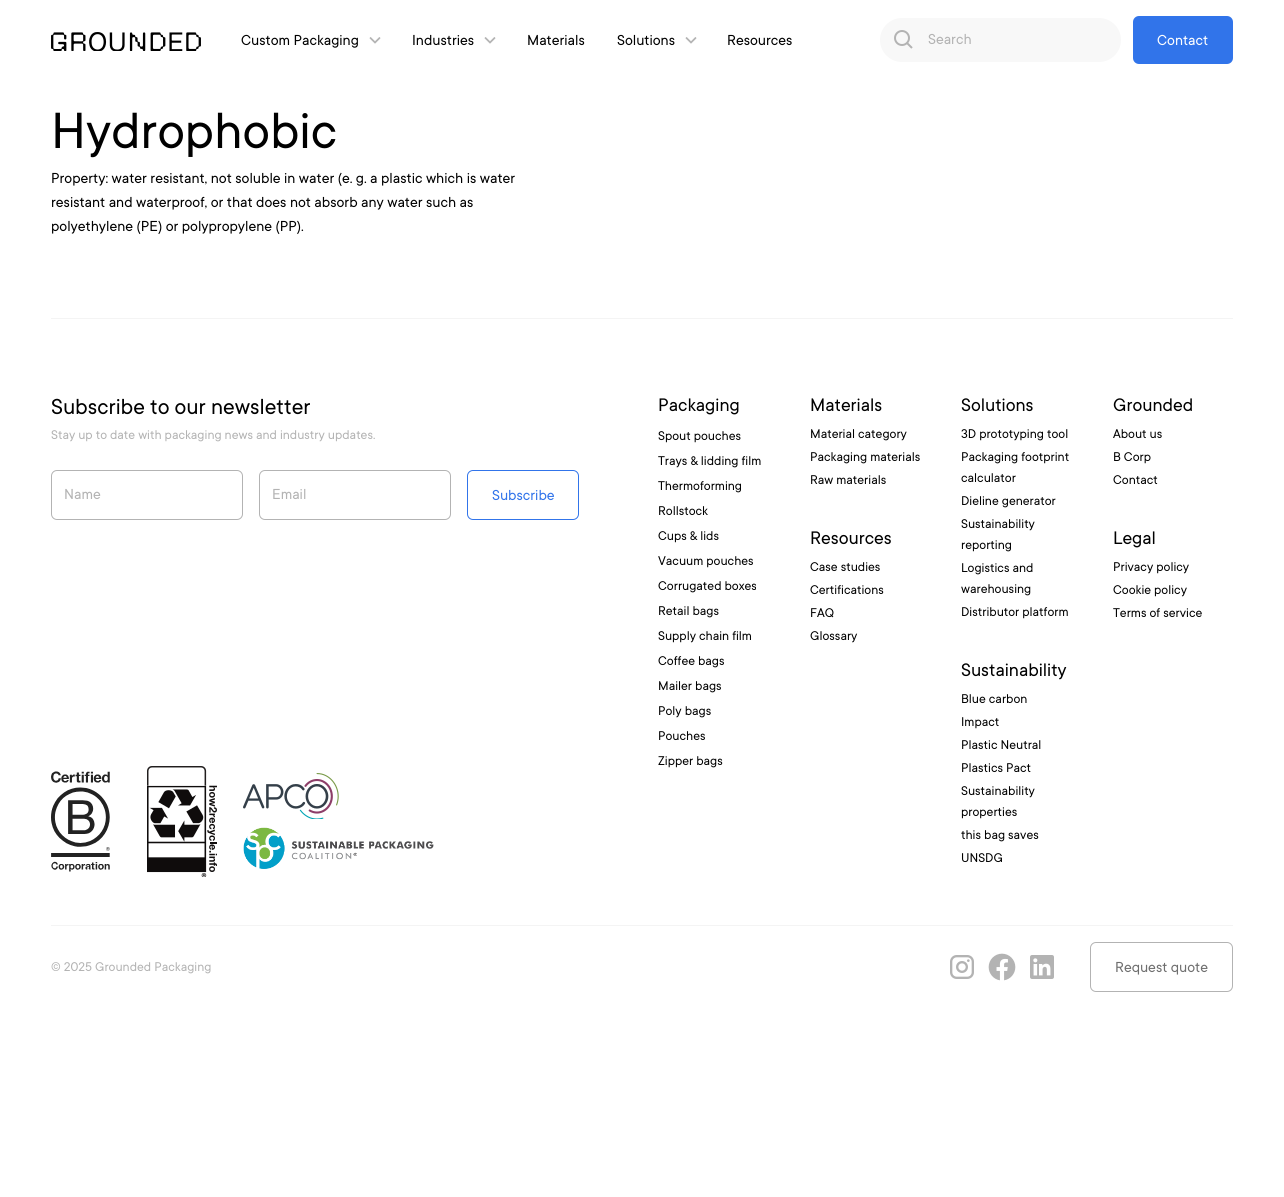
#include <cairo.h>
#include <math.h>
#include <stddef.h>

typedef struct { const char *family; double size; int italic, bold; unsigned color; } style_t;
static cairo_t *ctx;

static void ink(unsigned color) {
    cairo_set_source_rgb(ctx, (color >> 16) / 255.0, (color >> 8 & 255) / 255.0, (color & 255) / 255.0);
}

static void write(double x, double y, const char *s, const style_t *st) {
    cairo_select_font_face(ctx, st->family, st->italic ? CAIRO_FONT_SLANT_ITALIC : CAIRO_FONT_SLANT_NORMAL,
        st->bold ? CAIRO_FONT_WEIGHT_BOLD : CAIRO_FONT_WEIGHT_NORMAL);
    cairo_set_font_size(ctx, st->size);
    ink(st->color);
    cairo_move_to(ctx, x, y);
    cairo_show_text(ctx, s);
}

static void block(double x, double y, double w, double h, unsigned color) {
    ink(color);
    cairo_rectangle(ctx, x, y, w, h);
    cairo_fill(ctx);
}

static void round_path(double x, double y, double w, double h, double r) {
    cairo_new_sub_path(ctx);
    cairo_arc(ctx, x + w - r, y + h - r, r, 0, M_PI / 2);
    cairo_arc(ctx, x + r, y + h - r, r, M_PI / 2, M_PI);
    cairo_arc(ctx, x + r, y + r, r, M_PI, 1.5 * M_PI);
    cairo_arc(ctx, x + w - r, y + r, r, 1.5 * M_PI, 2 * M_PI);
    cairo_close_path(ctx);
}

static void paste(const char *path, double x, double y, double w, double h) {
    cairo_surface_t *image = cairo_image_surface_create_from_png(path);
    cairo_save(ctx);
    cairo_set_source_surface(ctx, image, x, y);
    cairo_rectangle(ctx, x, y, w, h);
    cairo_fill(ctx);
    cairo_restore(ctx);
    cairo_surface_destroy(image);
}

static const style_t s1 = {"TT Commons", 16, 0, 0, 0x000000};
static const style_t s2 = {"TT Commons", 16, 0, 0, 0xb3b3b3};
static const style_t s3 = {"TT Commons", 16, 0, 0, 0xffffff};
static const style_t s4 = {"TT Commons", 56, 0, 0, 0x000000};
static const style_t s5 = {"TT Commons", 24, 0, 0, 0x000000};
static const style_t s6 = {"TT Commons", 14, 0, 0, 0xb3b3b3};
static const style_t s7 = {"TT Commons", 16, 0, 0, 0x3174ea};
static const style_t s8 = {"TT Commons", 20, 0, 0, 0x000000};
static const style_t s9 = {"TT Commons", 14, 0, 0, 0x000000};
static const style_t s10 = {"TT Commons", 16, 0, 0, 0x6f6f6f};

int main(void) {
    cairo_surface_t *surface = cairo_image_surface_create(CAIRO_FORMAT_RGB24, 1284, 1197);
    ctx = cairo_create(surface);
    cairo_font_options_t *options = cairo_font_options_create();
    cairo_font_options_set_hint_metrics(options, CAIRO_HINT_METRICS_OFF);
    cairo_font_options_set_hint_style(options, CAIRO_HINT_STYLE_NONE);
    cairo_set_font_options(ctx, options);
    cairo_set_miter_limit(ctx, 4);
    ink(0xffffff);
    cairo_paint(ctx);
    paste("pic1.png", 51, 32, 150, 19);
    write(241, 45, "Custom Packaging", &s1);
    paste("pic2.png", 369, 37, 12, 7);
    write(412, 45, "Industries", &s1);
    paste("pic2.png", 484, 37, 12, 7);
    write(527, 45, "Materials", &s1);
    write(617, 45, "Solutions", &s1);
    paste("pic2.png", 685, 37, 12, 7);
    write(727, 45, "Resources", &s1);
    ink(0xf8f8f8);
    round_path(880, 18, 241, 44, 22);
    cairo_fill(ctx);
    paste("pic3.png", 894, 30, 19, 19);
    write(928, 44, "Search", &s2);
    ink(0x3174ea);
    round_path(1133, 16, 100, 48, 6);
    cairo_fill(ctx);
    write(1157, 45, "Contact", &s3);
    write(51, 148, "Hydrophobic", &s4);
    write(51, 183, "Property: water resistant, not soluble in water (e. g. a plastic which is water", &s1);
    write(51, 207, "resistant and waterproof, or that does not absorb any water such as", &s1);
    write(51, 231, "polyethylene (PE) or polypropylene (PP).", &s1);
    block(51, 318, 1182, 1, 0xf4f4f4);
    write(51, 414, "Subscribe to our newsletter", &s5);
    write(51, 439, "Stay up to date with packaging news and industry updates.", &s6);
    round_path(51.5, 470.5, 191, 49, 5.5);
    cairo_set_line_width(ctx, 1);
    cairo_stroke(ctx);
    write(64, 499, "Name", &s2);
    round_path(259.5, 470.5, 191, 49, 5.5);
    cairo_stroke(ctx);
    write(272, 499, "Email", &s2);
    round_path(467.5, 470.5, 111, 49, 5.5);
    ink(0x3174ea);
    cairo_stroke(ctx);
    write(492, 500, "Subscribe", &s7);
    paste("pic4.png", 51, 771, 59, 101);
    paste("pic5.png", 147, 766, 70, 111);
    paste("pic6.png", 243, 773, 96, 46);
    paste("pic7.png", 243, 827, 191, 42);
    write(658, 411, "Packaging", &s8);
    write(658, 440, "Spout pouches", &s9);
    write(658, 465, "Trays & lidding film", &s9);
    write(658, 490, "Thermoforming", &s9);
    write(658, 515, "Rollstock", &s9);
    write(658, 540, "Cups & lids", &s9);
    write(658, 565, "Vacuum pouches", &s9);
    write(658, 590, "Corrugated boxes", &s9);
    write(658, 615, "Retail bags", &s9);
    write(658, 640, "Supply chain film", &s9);
    write(658, 665, "Coffee bags", &s9);
    write(658, 690, "Mailer bags", &s9);
    write(658, 715, "Poly bags", &s9);
    write(658, 740, "Pouches", &s9);
    write(658, 765, "Zipper bags", &s9);
    write(810, 411, "Materials", &s8);
    write(810, 438, "Material category", &s9);
    write(810, 461, "Packaging materials", &s9);
    write(810, 484, "Raw materials", &s9);
    write(810, 544, "Resources", &s8);
    write(810, 571, "Case studies", &s9);
    write(810, 594, "Certifications", &s9);
    write(810, 617, "FAQ", &s9);
    write(810, 640, "Glossary", &s9);
    write(961, 411, "Solutions", &s8);
    write(961, 438, "3D prototyping tool", &s9);
    write(961, 461, "Packaging footprint", &s9);
    write(961, 482, "calculator", &s9);
    write(961, 505, "Dieline generator", &s9);
    write(961, 528, "Sustainability", &s9);
    write(961, 549, "reporting", &s9);
    write(961, 572, "Logistics and", &s9);
    write(961, 593, "warehousing", &s9);
    write(961, 616, "Distributor platform", &s9);
    write(961, 676, "Sustainability", &s8);
    write(961, 703, "Blue carbon", &s9);
    write(961, 726, "Impact", &s9);
    write(961, 749, "Plastic Neutral", &s9);
    write(961, 772, "Plastics Pact", &s9);
    write(961, 795, "Sustainability", &s9);
    write(961, 816, "properties", &s9);
    write(961, 839, "this bag saves", &s9);
    write(961, 862, "UNSDG", &s9);
    write(1113, 411, "Grounded", &s8);
    write(1113, 438, "About us", &s9);
    write(1113, 461, "B Corp", &s9);
    write(1113, 484, "Contact", &s9);
    write(1113, 544, "Legal", &s8);
    write(1113, 571, "Privacy policy", &s9);
    write(1113, 594, "Cookie policy", &s9);
    write(1113, 617, "Terms of service", &s9);
    block(51, 925, 1182, 1, 0xf4f4f4);
    write(51, 971, "© 2025 Grounded Packaging", &s6);
    paste("pic8.png", 950, 955, 24, 24);
    paste("pic9.png", 988, 953, 28, 28);
    paste("pic10.png", 1030, 955, 24, 24);
    round_path(1090.5, 942.5, 142, 49, 5.5);
    cairo_stroke(ctx);
    write(1115, 972, "Request quote", &s10);
    cairo_surface_write_to_png(surface, "screenshot.png");
    cairo_font_options_destroy(options);
    cairo_destroy(ctx);
    cairo_surface_destroy(surface);
    return 0;
}
